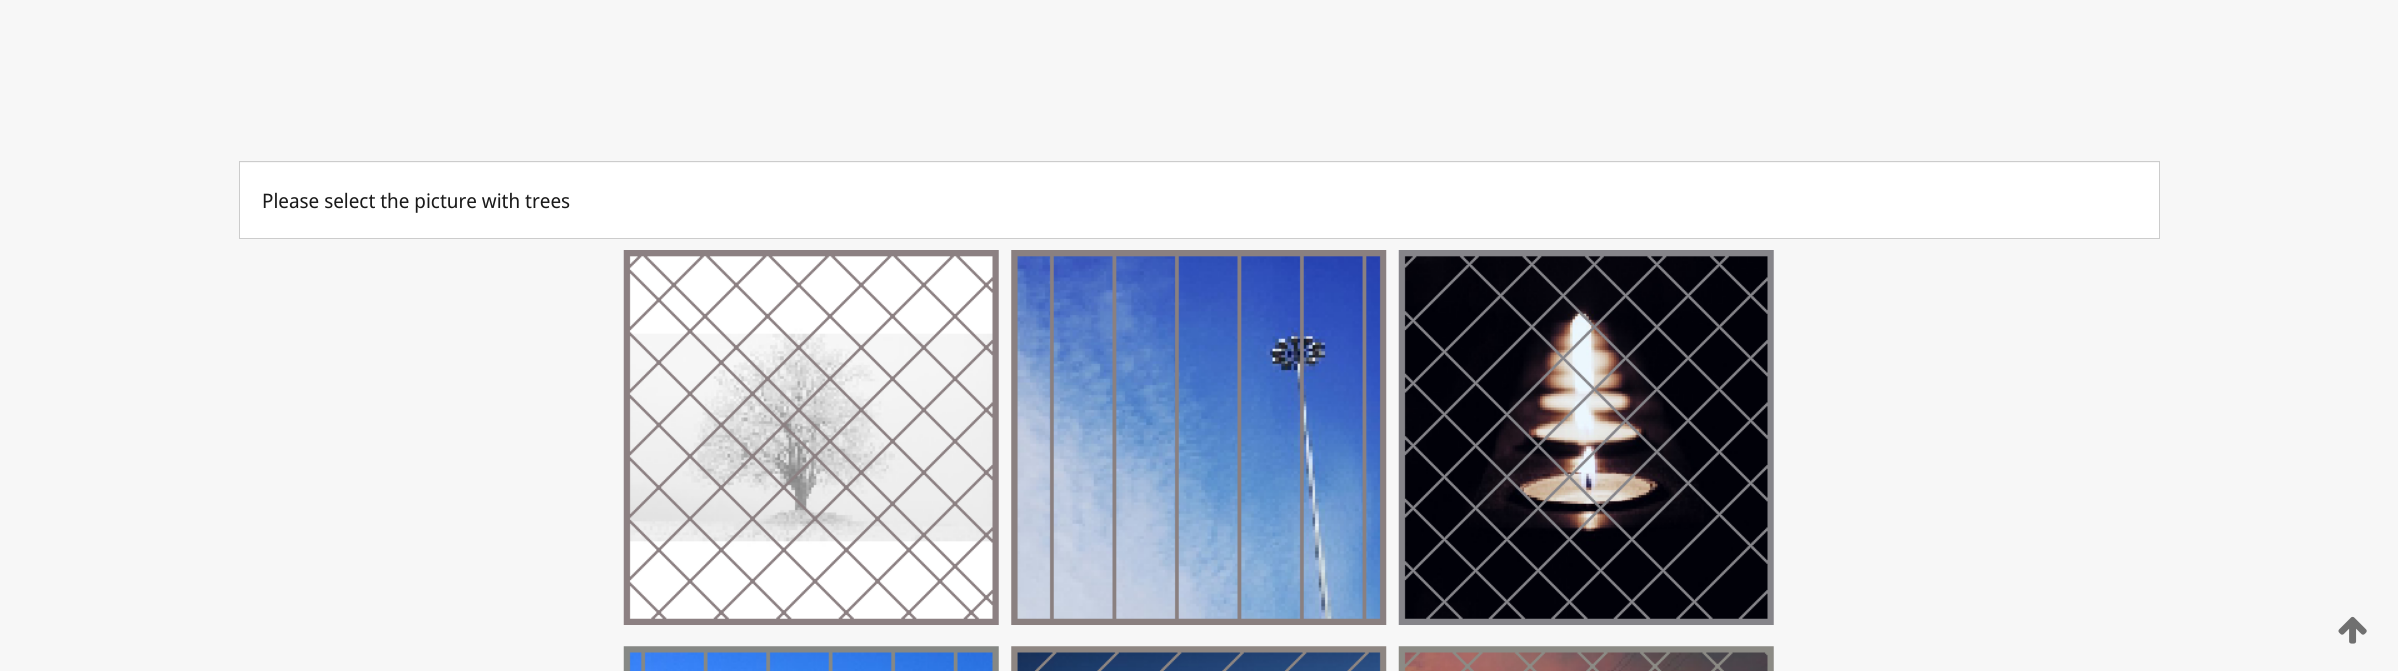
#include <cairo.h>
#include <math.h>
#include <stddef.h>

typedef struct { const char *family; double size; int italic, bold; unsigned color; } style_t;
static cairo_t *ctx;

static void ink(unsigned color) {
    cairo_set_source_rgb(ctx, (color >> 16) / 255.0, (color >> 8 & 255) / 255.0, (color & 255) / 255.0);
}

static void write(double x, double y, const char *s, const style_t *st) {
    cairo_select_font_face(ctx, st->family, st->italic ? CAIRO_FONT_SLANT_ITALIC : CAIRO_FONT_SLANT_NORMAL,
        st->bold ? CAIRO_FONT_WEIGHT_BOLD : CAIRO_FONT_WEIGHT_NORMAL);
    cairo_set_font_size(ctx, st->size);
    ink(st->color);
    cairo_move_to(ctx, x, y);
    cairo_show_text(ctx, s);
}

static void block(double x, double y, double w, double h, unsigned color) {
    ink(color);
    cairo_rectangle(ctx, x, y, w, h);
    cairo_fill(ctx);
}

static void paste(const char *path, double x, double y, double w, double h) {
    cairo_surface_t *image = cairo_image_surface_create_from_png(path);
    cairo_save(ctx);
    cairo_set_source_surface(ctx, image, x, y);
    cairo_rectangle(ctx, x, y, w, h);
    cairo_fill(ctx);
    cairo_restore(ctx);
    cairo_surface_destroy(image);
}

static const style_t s1 = {"Noto Sans Display", 20, 0, 0, 0x1a1a1a};

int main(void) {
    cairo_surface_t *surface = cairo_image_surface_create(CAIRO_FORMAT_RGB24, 2398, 671);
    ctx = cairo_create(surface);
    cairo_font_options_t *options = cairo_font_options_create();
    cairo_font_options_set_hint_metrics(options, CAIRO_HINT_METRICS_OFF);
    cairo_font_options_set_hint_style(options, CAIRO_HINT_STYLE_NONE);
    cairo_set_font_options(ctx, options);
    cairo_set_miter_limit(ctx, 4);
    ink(0xf7f7f7);
    cairo_paint(ctx);
    block(240, 163, 1919, 75, 0xffffff);
    cairo_rectangle(ctx, 239.5, 161.5, 1920, 77);
    ink(0xcccccc);
    cairo_set_line_width(ctx, 1);
    cairo_stroke(ctx);
    write(262, 208, "Please select the picture with trees", &s1);
    paste("pic1.png", 623, 250, 376, 375);
    paste("pic2.png", 1011, 250, 376, 375);
    paste("pic3.png", 1398, 250, 376, 375);
    paste("pic4.png", 623, 646, 376, 25);
    paste("pic5.png", 1011, 646, 376, 25);
    paste("pic6.png", 1398, 646, 376, 25);
    paste("pic7.png", 2338, 616, 29, 28);
    cairo_surface_write_to_png(surface, "screenshot.png");
    cairo_font_options_destroy(options);
    cairo_destroy(ctx);
    cairo_surface_destroy(surface);
    return 0;
}
